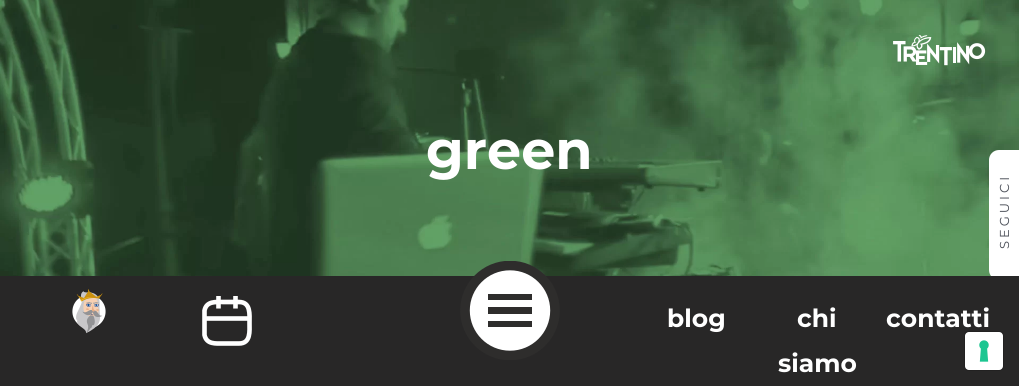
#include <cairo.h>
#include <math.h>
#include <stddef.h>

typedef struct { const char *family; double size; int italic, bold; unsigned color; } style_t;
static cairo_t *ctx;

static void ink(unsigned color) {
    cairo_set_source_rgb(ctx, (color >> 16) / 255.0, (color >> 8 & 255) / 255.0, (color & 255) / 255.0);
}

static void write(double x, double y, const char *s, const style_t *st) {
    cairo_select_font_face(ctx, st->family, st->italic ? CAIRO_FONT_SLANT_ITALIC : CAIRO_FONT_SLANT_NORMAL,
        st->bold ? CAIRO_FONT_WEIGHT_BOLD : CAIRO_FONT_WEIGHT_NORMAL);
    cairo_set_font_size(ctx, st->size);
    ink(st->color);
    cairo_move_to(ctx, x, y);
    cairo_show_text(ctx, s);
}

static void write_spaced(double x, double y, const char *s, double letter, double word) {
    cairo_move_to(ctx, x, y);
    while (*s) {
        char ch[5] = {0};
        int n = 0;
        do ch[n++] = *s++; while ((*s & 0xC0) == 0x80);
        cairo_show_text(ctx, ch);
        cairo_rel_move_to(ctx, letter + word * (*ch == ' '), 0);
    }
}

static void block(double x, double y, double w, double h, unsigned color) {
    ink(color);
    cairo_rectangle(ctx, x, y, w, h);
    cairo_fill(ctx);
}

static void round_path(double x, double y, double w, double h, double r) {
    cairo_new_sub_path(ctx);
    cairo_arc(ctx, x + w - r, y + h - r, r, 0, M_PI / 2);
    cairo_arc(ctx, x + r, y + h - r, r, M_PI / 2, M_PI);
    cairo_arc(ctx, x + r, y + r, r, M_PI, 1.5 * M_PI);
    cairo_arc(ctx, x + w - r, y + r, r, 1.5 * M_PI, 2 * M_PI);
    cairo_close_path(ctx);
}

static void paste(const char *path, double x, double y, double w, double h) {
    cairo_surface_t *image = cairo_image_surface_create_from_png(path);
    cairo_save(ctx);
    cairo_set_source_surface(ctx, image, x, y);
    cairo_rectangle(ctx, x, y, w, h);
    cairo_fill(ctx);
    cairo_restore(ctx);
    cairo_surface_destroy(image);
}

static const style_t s1 = {"Montserrat Thin", 54, 0, 0, 0xffffff};
static const style_t s2 = {"Montserrat Thin", 25, 0, 0, 0xffffff};

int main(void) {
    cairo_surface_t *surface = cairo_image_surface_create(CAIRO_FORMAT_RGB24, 1019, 386);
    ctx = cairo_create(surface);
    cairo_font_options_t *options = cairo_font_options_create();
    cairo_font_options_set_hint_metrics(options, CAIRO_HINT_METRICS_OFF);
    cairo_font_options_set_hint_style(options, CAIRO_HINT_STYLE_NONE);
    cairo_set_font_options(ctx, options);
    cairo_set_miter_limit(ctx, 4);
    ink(0xffffff);
    cairo_paint(ctx);
    paste("pic1.png", 0, 0, 1019, 276);
    write(426, 169, "green", &s1);
    paste("pic2.png", 893, 34, 93, 32);
    round_path(989, 150, 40, 130, 10);
    cairo_fill(ctx);
    cairo_select_font_face(ctx, "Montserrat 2 Thin", CAIRO_FONT_SLANT_NORMAL, CAIRO_FONT_WEIGHT_NORMAL);
    cairo_set_font_size(ctx, 13);
    ink(0x4a4e57);
    cairo_save(ctx);
    cairo_translate(ctx, 1009, 249);
    cairo_rotate(ctx, -90 * M_PI / 180);
    write_spaced(0, 0, "SEGUICI", 3, 0);
    cairo_restore(ctx);
    block(0, 276, 1019, 110, 0x282727);
    paste("pic3.png", 72, 289, 34, 45);
    cairo_new_path(ctx);
    cairo_move_to(ctx, 204.5, 318.5);
    cairo_line_to(ctx, 249.5, 318.5);
    cairo_move_to(ctx, 235.5, 296);
    cairo_line_to(ctx, 235.5, 308.5);
    cairo_move_to(ctx, 218.5, 296);
    cairo_line_to(ctx, 218.5, 308.5);
    cairo_move_to(ctx, 239, 343.5);
    cairo_line_to(ctx, 223, 343.5);
    cairo_curve_to(ctx, 215.5, 343.5, 206.5, 344.5, 204.5, 335);
    cairo_line_to(ctx, 204.5, 310.5);
    cairo_curve_to(ctx, 206.5, 301, 215.5, 302, 223, 302);
    cairo_line_to(ctx, 239, 302);
    cairo_curve_to(ctx, 251, 302, 249.5, 314.5, 249.5, 323);
    cairo_curve_to(ctx, 249.5, 331, 251, 343.5, 239, 343.5);
    cairo_close_path(ctx);
    ink(0xffffff);
    cairo_set_line_width(ctx, 4.6);
    cairo_stroke(ctx);
    cairo_new_path(ctx);
    cairo_move_to(ctx, 510, 355);
    cairo_curve_to(ctx, 535, 355, 555, 335, 555, 310);
    cairo_curve_to(ctx, 555, 286, 535, 266, 510, 266);
    cairo_curve_to(ctx, 485, 266, 465, 286, 465, 310);
    cairo_curve_to(ctx, 465, 335, 485, 355, 510, 355);
    cairo_fill(ctx);
    cairo_save(ctx);
    cairo_rectangle(ctx, 460, 261, 100, 99);
    cairo_clip(ctx);
    cairo_arc(ctx, 510, 310.5, 45, 0, 2 * M_PI);
    ink(0x2e2d2c);
    cairo_set_line_width(ctx, 9.6);
    cairo_stroke(ctx);
    cairo_restore(ctx);
    block(488, 294, 44, 6, 0x2e2d2c);
    block(488, 307, 44, 7, 0x2e2d2c);
    block(488, 321, 44, 6, 0x2e2d2c);
    write(667, 327, "blog", &s2);
    write(797, 327, "chi", &s2);
    write(778, 372, "siamo", &s2);
    write(886, 327, "contatti", &s2);
    round_path(964.5, 331.5, 39, 39, 4.5);
    ink(0x222121);
    cairo_set_line_width(ctx, 1);
    cairo_stroke(ctx);
    ink(0xffffff);
    round_path(965, 332, 38, 38, 4);
    cairo_fill(ctx);
    paste("pic4.png", 979, 340, 10, 22);
    cairo_surface_write_to_png(surface, "screenshot.png");
    cairo_font_options_destroy(options);
    cairo_destroy(ctx);
    cairo_surface_destroy(surface);
    return 0;
}
